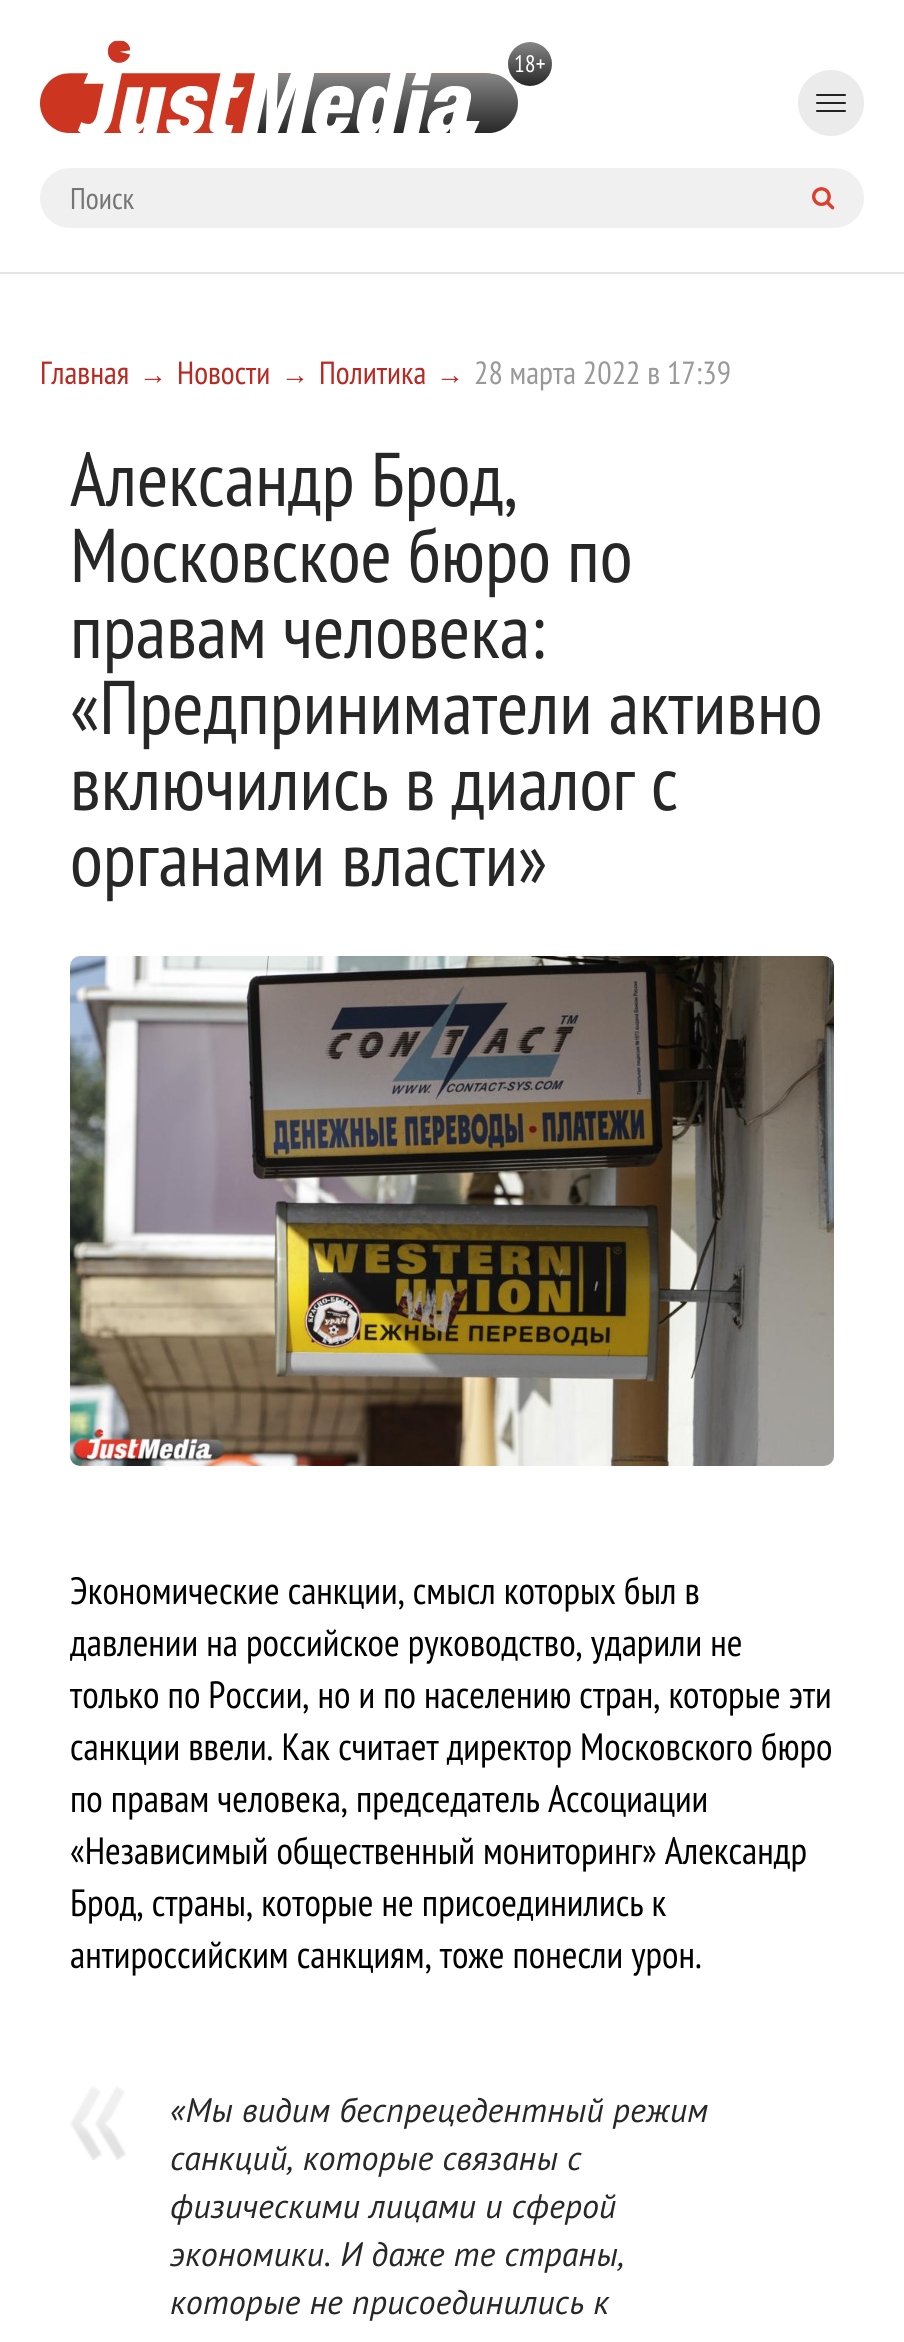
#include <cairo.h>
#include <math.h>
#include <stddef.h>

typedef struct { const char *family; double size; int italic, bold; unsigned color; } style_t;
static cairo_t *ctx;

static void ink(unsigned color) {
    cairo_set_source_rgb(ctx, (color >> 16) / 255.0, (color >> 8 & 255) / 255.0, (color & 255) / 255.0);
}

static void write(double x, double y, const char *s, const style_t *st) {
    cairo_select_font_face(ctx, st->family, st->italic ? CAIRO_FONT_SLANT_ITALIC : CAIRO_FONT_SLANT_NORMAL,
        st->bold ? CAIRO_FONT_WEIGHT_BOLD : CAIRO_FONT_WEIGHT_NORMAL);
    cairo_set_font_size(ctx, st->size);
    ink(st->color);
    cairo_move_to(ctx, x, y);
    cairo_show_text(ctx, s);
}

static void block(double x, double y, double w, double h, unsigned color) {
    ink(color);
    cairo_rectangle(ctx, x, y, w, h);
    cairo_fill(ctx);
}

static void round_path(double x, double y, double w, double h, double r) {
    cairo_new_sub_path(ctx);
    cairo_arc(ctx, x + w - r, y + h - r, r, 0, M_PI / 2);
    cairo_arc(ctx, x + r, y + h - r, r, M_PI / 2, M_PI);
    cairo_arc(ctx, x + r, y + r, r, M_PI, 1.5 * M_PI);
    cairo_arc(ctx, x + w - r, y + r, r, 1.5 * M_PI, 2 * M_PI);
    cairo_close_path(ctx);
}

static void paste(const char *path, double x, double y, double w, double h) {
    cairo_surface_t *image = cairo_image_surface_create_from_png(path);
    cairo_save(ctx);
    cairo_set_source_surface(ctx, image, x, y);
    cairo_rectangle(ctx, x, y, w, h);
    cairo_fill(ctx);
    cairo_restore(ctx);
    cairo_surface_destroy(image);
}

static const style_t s1 = {"PT Sans Narrow", 30, 0, 0, 0x757575};
static const style_t s2 = {"PT Sans Narrow", 32, 0, 0, 0xba2821};
static const style_t s3 = {"Liberation Sans", 28, 0, 0, 0xba2821};
static const style_t s4 = {"PT Sans Narrow", 32, 0, 0, 0x999999};
static const style_t s5 = {"PT Sans Narrow", 76, 0, 0, 0x272727};
static const style_t s6 = {"PT Sans Narrow", 38, 0, 0, 0x000000};
static const style_t s7 = {"PT Sans", 34, 1, 0, 0x272727};

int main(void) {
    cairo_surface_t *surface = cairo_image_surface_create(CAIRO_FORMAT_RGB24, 904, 2342);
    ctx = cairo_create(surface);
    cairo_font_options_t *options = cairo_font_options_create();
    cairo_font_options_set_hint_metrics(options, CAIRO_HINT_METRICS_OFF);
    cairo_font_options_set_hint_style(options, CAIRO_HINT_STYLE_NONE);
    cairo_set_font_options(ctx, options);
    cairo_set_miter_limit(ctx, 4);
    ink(0xffffff);
    cairo_paint(ctx);
    block(0, 272, 904, 2, 0xe5e5e5);
    paste("pic1.png", 40, 40, 512, 93);
    ink(0xecebeb);
    cairo_arc(ctx, 831, 103, 33, 0, 2 * M_PI);
    cairo_fill(ctx);
    ink(0x232323);
    round_path(816, 94, 30, 2, 1);
    cairo_fill(ctx);
    round_path(816, 102, 30, 2, 1);
    cairo_fill(ctx);
    round_path(816, 110, 30, 2, 1);
    cairo_fill(ctx);
    ink(0xf0f0f0);
    round_path(40, 168, 824, 60, 30);
    cairo_fill(ctx);
    write(70, 209, "Поиск", &s1);
    paste("pic2.png", 812, 187, 23, 23);
    write(40, 384, "Главная", &s2);
    write(139, 384, "→", &s3);
    write(177, 384, "Новости", &s2);
    write(281, 384, "→", &s3);
    write(319, 384, "Политика", &s2);
    write(436, 384, "→", &s3);
    write(474, 384, "28 марта 2022 в 17:39", &s4);
    write(70, 506, "Александр Брод,", &s5);
    write(70, 582, "Московское бюро по", &s5);
    write(70, 658, "правам человека:", &s5);
    write(70, 734, "«Предприниматели активно", &s5);
    write(70, 810, "включились в диалог с", &s5);
    write(70, 886, "органами власти»", &s5);
    paste("pic3.png", 70, 956, 764, 510);
    write(70, 1604, "Экономические санкции, смысл которых был в", &s6);
    write(70, 1656, "давлении на российское руководство, ударили не", &s6);
    write(70, 1708, "только по России, но и по населению стран, которые эти", &s6);
    write(70, 1760, "санкции ввели. Как считает директор Московского бюро", &s6);
    write(70, 1812, "по правам человека, председатель Ассоциации", &s6);
    write(70, 1864, "«Независимый общественный мониторинг» Александр", &s6);
    write(70, 1916, "Брод, страны, которые не присоединились к", &s6);
    write(70, 1968, "антироссийским санкциям, тоже понесли урон.", &s6);
    paste("pic4.png", 70, 2086, 56, 74);
    write(170, 2122, "«Мы видим беспрецедентный режим", &s7);
    write(170, 2170, "санкций, которые связаны с", &s7);
    write(170, 2218, "физическими лицами и сферой", &s7);
    write(170, 2266, "экономики. И даже те страны,", &s7);
    write(170, 2314, "которые не присоединились к", &s7);
    cairo_surface_write_to_png(surface, "screenshot.png");
    cairo_font_options_destroy(options);
    cairo_destroy(ctx);
    cairo_surface_destroy(surface);
    return 0;
}
